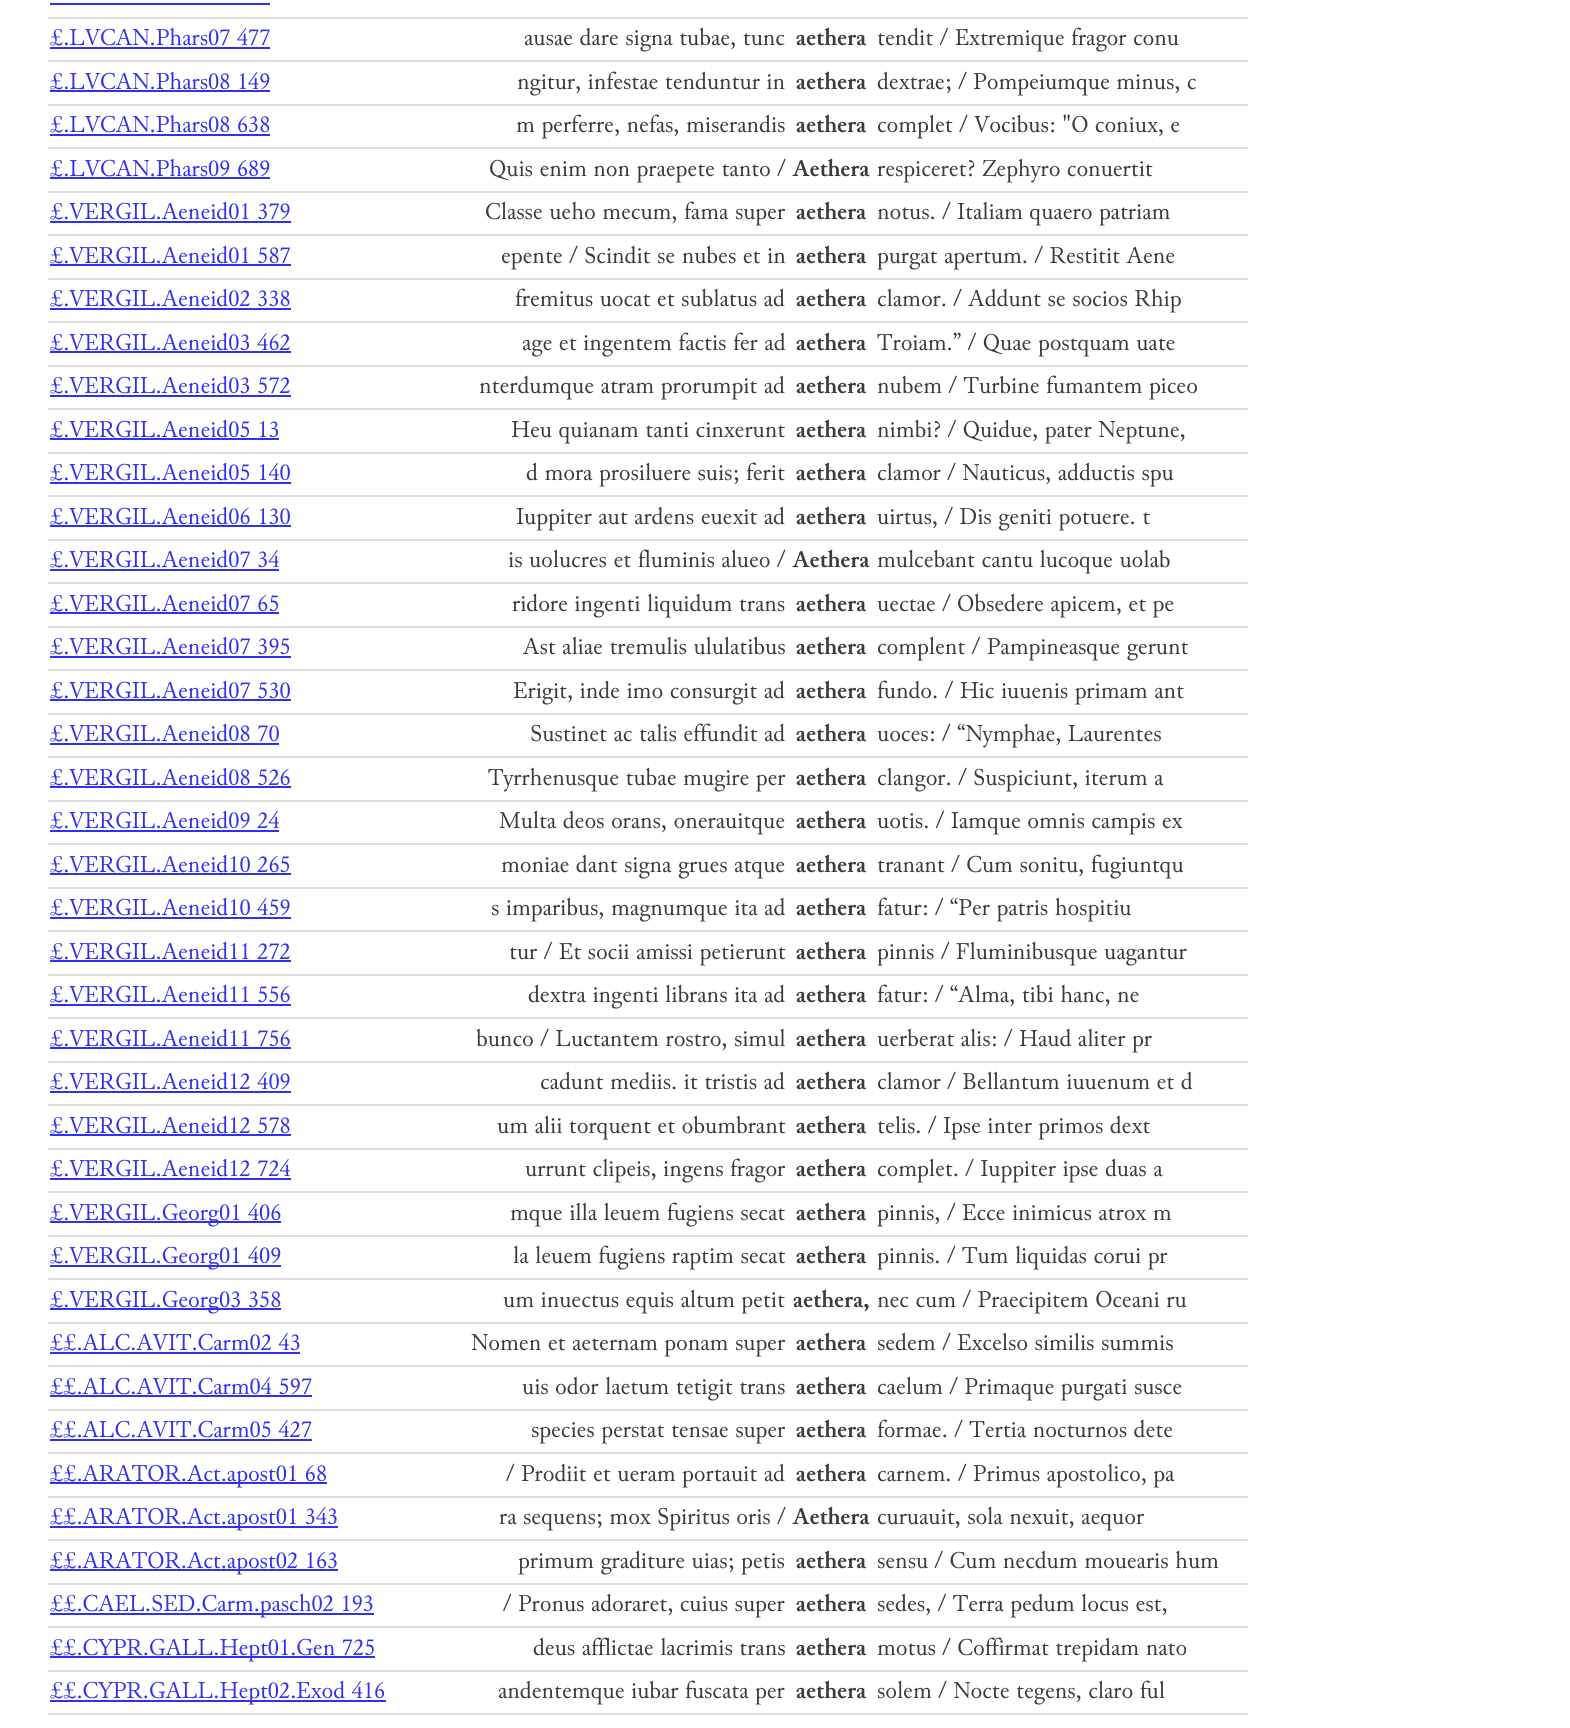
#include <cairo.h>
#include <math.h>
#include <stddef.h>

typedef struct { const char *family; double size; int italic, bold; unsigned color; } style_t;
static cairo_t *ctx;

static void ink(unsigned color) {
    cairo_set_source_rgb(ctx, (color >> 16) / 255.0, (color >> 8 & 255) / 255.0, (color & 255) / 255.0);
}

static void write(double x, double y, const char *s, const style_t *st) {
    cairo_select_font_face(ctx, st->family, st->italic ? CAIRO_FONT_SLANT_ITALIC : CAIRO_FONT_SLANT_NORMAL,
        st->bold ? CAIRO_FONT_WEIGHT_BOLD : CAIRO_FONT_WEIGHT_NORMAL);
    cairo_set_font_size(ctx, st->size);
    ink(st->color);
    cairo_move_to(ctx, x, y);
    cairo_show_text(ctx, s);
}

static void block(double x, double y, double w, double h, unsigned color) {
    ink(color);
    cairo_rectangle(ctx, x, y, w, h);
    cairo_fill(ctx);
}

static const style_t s1 = {"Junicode", 24, 0, 0, 0x3030f0};
static const style_t s2 = {"Junicode", 24, 0, 0, 0x3b3b3b};
static const style_t s3 = {"Junicode", 24, 0, 1, 0x3b3b3b};

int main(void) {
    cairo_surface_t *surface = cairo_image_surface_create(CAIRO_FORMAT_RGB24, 1570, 1728);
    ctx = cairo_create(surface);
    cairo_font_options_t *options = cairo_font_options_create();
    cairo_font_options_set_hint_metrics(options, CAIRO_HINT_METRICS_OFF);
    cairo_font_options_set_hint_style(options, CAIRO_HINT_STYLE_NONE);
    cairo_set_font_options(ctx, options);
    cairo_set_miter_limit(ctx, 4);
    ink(0xffffff);
    cairo_paint(ctx);
    block(50, 3, 220, 2, 0x3030f0);
    block(48, 17, 1200, 2, 0xdddddd);
    write(50, 45, "£.LVCAN.Phars07 477", &s1);
    block(50, 47, 220, 2, 0x3030f0);
    write(524, 45, "ausae dare signa tubae, tunc", &s2);
    write(796, 45, "aethera", &s3);
    block(48, 60, 1200, 2, 0xdddddd);
    write(877, 45, "tendit / Extremique fragor conu", &s2);
    write(50, 89, "£.LVCAN.Phars08 149", &s1);
    block(50, 90, 220, 2, 0x3030f0);
    write(517, 89, "ngitur, infestae tenduntur in", &s2);
    write(796, 89, "aethera", &s3);
    block(48, 104, 1200, 2, 0xdddddd);
    write(877, 89, "dextrae; / Pompeiumque minus, c", &s2);
    write(50, 132, "£.LVCAN.Phars08 638", &s1);
    block(50, 134, 220, 2, 0x3030f0);
    write(516, 132, "m perferre, nefas, miserandis", &s2);
    write(796, 132, "aethera", &s3);
    block(48, 147, 1200, 2, 0xdddddd);
    write(877, 132, "complet / Vocibus: \"O coniux, e", &s2);
    write(50, 176, "£.LVCAN.Phars09 689", &s1);
    block(50, 177, 220, 2, 0x3030f0);
    write(489, 176, "Quis enim non praepete tanto /", &s2);
    write(793, 176, "Aethera", &s3);
    block(48, 191, 1200, 2, 0xdddddd);
    write(877, 176, "respiceret? Zephyro conuertit", &s2);
    write(50, 219, "£.VERGIL.Aeneid01 379", &s1);
    block(50, 221, 241, 2, 0x3030f0);
    write(485, 219, "Classe ueho mecum, fama super", &s2);
    write(796, 219, "aethera", &s3);
    block(48, 234, 1200, 2, 0xdddddd);
    write(877, 219, "notus. / Italiam quaero patriam", &s2);
    write(50, 263, "£.VERGIL.Aeneid01 587", &s1);
    block(50, 264, 241, 2, 0x3030f0);
    write(501, 263, "epente / Scindit se nubes et in", &s2);
    write(796, 263, "aethera", &s3);
    block(48, 278, 1200, 2, 0xdddddd);
    write(877, 263, "purgat apertum. / Restitit Aene", &s2);
    write(50, 306, "£.VERGIL.Aeneid02 338", &s1);
    block(50, 308, 241, 2, 0x3030f0);
    write(515, 306, "fremitus uocat et sublatus ad", &s2);
    write(796, 306, "aethera", &s3);
    block(48, 321, 1200, 2, 0xdddddd);
    write(877, 306, "clamor. / Addunt se socios Rhip", &s2);
    write(50, 350, "£.VERGIL.Aeneid03 462", &s1);
    block(50, 351, 241, 2, 0x3030f0);
    write(522, 350, "age et ingentem factis fer ad", &s2);
    write(796, 350, "aethera", &s3);
    block(48, 365, 1200, 2, 0xdddddd);
    write(877, 350, "Troiam.” / Quae postquam uate", &s2);
    write(50, 393, "£.VERGIL.Aeneid03 572", &s1);
    block(50, 395, 241, 2, 0x3030f0);
    write(479, 393, "nterdumque atram prorumpit ad", &s2);
    write(796, 393, "aethera", &s3);
    block(48, 408, 1200, 2, 0xdddddd);
    write(877, 393, "nubem / Turbine fumantem piceo", &s2);
    write(50, 437, "£.VERGIL.Aeneid05 13", &s1);
    block(50, 438, 229, 2, 0x3030f0);
    write(511, 437, "Heu quianam tanti cinxerunt", &s2);
    write(796, 437, "aethera", &s3);
    block(48, 452, 1200, 2, 0xdddddd);
    write(877, 437, "nimbi? / Quidue, pater Neptune,", &s2);
    write(50, 480, "£.VERGIL.Aeneid05 140", &s1);
    block(50, 482, 241, 2, 0x3030f0);
    write(526, 480, "d mora prosiluere suis; ferit", &s2);
    write(796, 480, "aethera", &s3);
    block(48, 495, 1200, 2, 0xdddddd);
    write(877, 480, "clamor / Nauticus, adductis spu", &s2);
    write(50, 524, "£.VERGIL.Aeneid06 130", &s1);
    block(50, 525, 241, 2, 0x3030f0);
    write(516, 524, "Iuppiter aut ardens euexit ad", &s2);
    write(796, 524, "aethera", &s3);
    block(48, 539, 1200, 2, 0xdddddd);
    write(877, 524, "uirtus, / Dis geniti potuere. t", &s2);
    write(50, 567, "£.VERGIL.Aeneid07 34", &s1);
    block(50, 569, 229, 2, 0x3030f0);
    write(508, 567, "is uolucres et fluminis alueo /", &s2);
    write(793, 567, "Aethera", &s3);
    block(48, 582, 1200, 2, 0xdddddd);
    write(877, 567, "mulcebant cantu lucoque uolab", &s2);
    write(50, 611, "£.VERGIL.Aeneid07 65", &s1);
    block(50, 612, 229, 2, 0x3030f0);
    write(512, 611, "ridore ingenti liquidum trans", &s2);
    write(796, 611, "aethera", &s3);
    block(48, 626, 1200, 2, 0xdddddd);
    write(877, 611, "uectae / Obsedere apicem, et pe", &s2);
    write(50, 654, "£.VERGIL.Aeneid07 395", &s1);
    block(50, 656, 241, 2, 0x3030f0);
    write(523, 654, "Ast aliae tremulis ululatibus", &s2);
    write(796, 654, "aethera", &s3);
    block(48, 669, 1200, 2, 0xdddddd);
    write(877, 654, "complent / Pampineasque gerunt", &s2);
    write(50, 698, "£.VERGIL.Aeneid07 530", &s1);
    block(50, 699, 241, 2, 0x3030f0);
    write(513, 698, "Erigit, inde imo consurgit ad", &s2);
    write(796, 698, "aethera", &s3);
    block(48, 713, 1200, 2, 0xdddddd);
    write(877, 698, "fundo. / Hic iuuenis primam ant", &s2);
    write(50, 741, "£.VERGIL.Aeneid08 70", &s1);
    block(50, 743, 229, 2, 0x3030f0);
    write(530, 741, "Sustinet ac talis effundit ad", &s2);
    write(796, 741, "aethera", &s3);
    block(48, 756, 1200, 2, 0xdddddd);
    write(877, 741, "uoces: / “Nymphae, Laurentes", &s2);
    write(50, 785, "£.VERGIL.Aeneid08 526", &s1);
    block(50, 786, 241, 2, 0x3030f0);
    write(488, 785, "Tyrrhenusque tubae mugire per", &s2);
    write(796, 785, "aethera", &s3);
    block(48, 800, 1200, 2, 0xdddddd);
    write(877, 785, "clangor. / Suspiciunt, iterum a", &s2);
    write(50, 828, "£.VERGIL.Aeneid09 24", &s1);
    block(50, 830, 229, 2, 0x3030f0);
    write(499, 828, "Multa deos orans, onerauitque", &s2);
    write(796, 828, "aethera", &s3);
    block(48, 843, 1200, 2, 0xdddddd);
    write(877, 828, "uotis. / Iamque omnis campis ex", &s2);
    write(50, 872, "£.VERGIL.Aeneid10 265", &s1);
    block(50, 873, 241, 2, 0x3030f0);
    write(501, 872, "moniae dant signa grues atque", &s2);
    write(796, 872, "aethera", &s3);
    block(48, 887, 1200, 2, 0xdddddd);
    write(877, 872, "tranant / Cum sonitu, fugiuntqu", &s2);
    write(50, 915, "£.VERGIL.Aeneid10 459", &s1);
    block(50, 917, 241, 2, 0x3030f0);
    write(491, 915, "s imparibus, magnumque ita ad", &s2);
    write(796, 915, "aethera", &s3);
    block(48, 930, 1200, 2, 0xdddddd);
    write(877, 915, "fatur: / “Per patris hospitiu", &s2);
    write(50, 959, "£.VERGIL.Aeneid11 272", &s1);
    block(50, 960, 241, 2, 0x3030f0);
    write(509, 959, "tur / Et socii amissi petierunt", &s2);
    write(796, 959, "aethera", &s3);
    block(48, 974, 1200, 2, 0xdddddd);
    write(877, 959, "pinnis / Fluminibusque uagantur", &s2);
    write(50, 1002, "£.VERGIL.Aeneid11 556", &s1);
    block(50, 1004, 241, 2, 0x3030f0);
    write(528, 1002, "dextra ingenti librans ita ad", &s2);
    write(796, 1002, "aethera", &s3);
    block(48, 1017, 1200, 2, 0xdddddd);
    write(877, 1002, "fatur: / “Alma, tibi hanc, ne", &s2);
    write(50, 1046, "£.VERGIL.Aeneid11 756", &s1);
    block(50, 1047, 241, 2, 0x3030f0);
    write(476, 1046, "bunco / Luctantem rostro, simul", &s2);
    write(796, 1046, "aethera", &s3);
    block(48, 1061, 1200, 2, 0xdddddd);
    write(877, 1046, "uerberat alis: / Haud aliter pr", &s2);
    write(50, 1089, "£.VERGIL.Aeneid12 409", &s1);
    block(50, 1091, 241, 2, 0x3030f0);
    write(540, 1089, "cadunt mediis. it tristis ad", &s2);
    write(796, 1089, "aethera", &s3);
    block(48, 1104, 1200, 2, 0xdddddd);
    write(877, 1089, "clamor / Bellantum iuuenum et d", &s2);
    write(50, 1133, "£.VERGIL.Aeneid12 578", &s1);
    block(50, 1134, 241, 2, 0x3030f0);
    write(497, 1133, "um alii torquent et obumbrant", &s2);
    write(796, 1133, "aethera", &s3);
    block(48, 1148, 1200, 2, 0xdddddd);
    write(877, 1133, "telis. / Ipse inter primos dext", &s2);
    write(50, 1176, "£.VERGIL.Aeneid12 724", &s1);
    block(50, 1178, 241, 2, 0x3030f0);
    write(525, 1176, "urrunt clipeis, ingens fragor", &s2);
    write(796, 1176, "aethera", &s3);
    block(48, 1191, 1200, 2, 0xdddddd);
    write(877, 1176, "complet. / Iuppiter ipse duas a", &s2);
    block(50, 1221, 231, 2, 0x3030f0);
    write(50, 1220, "£.VERGIL.Georg01 406", &s1);
    write(510, 1220, "mque illa leuem fugiens secat", &s2);
    write(796, 1220, "aethera", &s3);
    block(48, 1235, 1200, 2, 0xdddddd);
    write(877, 1220, "pinnis, / Ecce inimicus atrox m", &s2);
    block(50, 1265, 231, 2, 0x3030f0);
    write(50, 1263, "£.VERGIL.Georg01 409", &s1);
    write(513, 1263, "la leuem fugiens raptim secat", &s2);
    write(796, 1263, "aethera", &s3);
    block(48, 1278, 1200, 2, 0xdddddd);
    write(877, 1263, "pinnis. / Tum liquidas corui pr", &s2);
    block(50, 1308, 231, 2, 0x3030f0);
    write(50, 1307, "£.VERGIL.Georg03 358", &s1);
    write(503, 1307, "um inuectus equis altum petit", &s2);
    write(793, 1307, "aethera,", &s3);
    block(48, 1322, 1200, 2, 0xdddddd);
    write(877, 1307, "nec cum / Praecipitem Oceani ru", &s2);
    write(50, 1350, "££.ALC.AVIT.Carm02 43", &s1);
    block(50, 1352, 250, 2, 0x3030f0);
    write(471, 1350, "Nomen et aeternam ponam super", &s2);
    write(796, 1350, "aethera", &s3);
    block(48, 1365, 1200, 2, 0xdddddd);
    write(877, 1350, "sedem / Excelso similis summis", &s2);
    write(50, 1394, "££.ALC.AVIT.Carm04 597", &s1);
    block(50, 1395, 262, 2, 0x3030f0);
    write(522, 1394, "uis odor laetum tetigit trans", &s2);
    write(796, 1394, "aethera", &s3);
    block(48, 1409, 1200, 2, 0xdddddd);
    write(877, 1394, "caelum / Primaque purgati susce", &s2);
    write(50, 1437, "££.ALC.AVIT.Carm05 427", &s1);
    block(50, 1439, 262, 2, 0x3030f0);
    write(531, 1437, "species perstat tensae super", &s2);
    write(796, 1437, "aethera", &s3);
    block(48, 1452, 1200, 2, 0xdddddd);
    write(877, 1437, "formae. / Tertia nocturnos dete", &s2);
    block(50, 1482, 277, 2, 0x3030f0);
    write(50, 1481, "££.ARATOR.Act.apost01 68", &s1);
    write(506, 1481, "/ Prodiit et ueram portauit ad", &s2);
    write(796, 1481, "aethera", &s3);
    block(48, 1496, 1200, 2, 0xdddddd);
    write(877, 1481, "carnem. / Primus apostolico, pa", &s2);
    block(50, 1526, 288, 2, 0x3030f0);
    write(50, 1524, "££.ARATOR.Act.apost01 343", &s1);
    write(499, 1524, "ra sequens; mox Spiritus oris /", &s2);
    write(793, 1524, "Aethera", &s3);
    block(48, 1539, 1200, 2, 0xdddddd);
    write(877, 1524, "curuauit, sola nexuit, aequor", &s2);
    block(50, 1569, 288, 2, 0x3030f0);
    write(50, 1568, "££.ARATOR.Act.apost02 163", &s1);
    write(518, 1568, "primum graditure uias; petis", &s2);
    write(796, 1568, "aethera", &s3);
    block(48, 1583, 1200, 2, 0xdddddd);
    write(877, 1568, "sensu / Cum necdum mouearis hum", &s2);
    block(50, 1613, 324, 2, 0x3030f0);
    write(50, 1611, "££.CAEL.SED.Carm.pasch02 193", &s1);
    write(503, 1611, "/ Pronus adoraret, cuius super", &s2);
    write(796, 1611, "aethera", &s3);
    block(48, 1626, 1200, 2, 0xdddddd);
    write(877, 1611, "sedes, / Terra pedum locus est,", &s2);
    block(50, 1656, 325, 2, 0x3030f0);
    write(50, 1655, "££.CYPR.GALL.Hept01.Gen 725", &s1);
    write(533, 1655, "deus afflictae lacrimis trans", &s2);
    write(796, 1655, "aethera", &s3);
    block(48, 1670, 1200, 2, 0xdddddd);
    write(877, 1655, "motus / Coffirmat trepidam nato", &s2);
    block(50, 1700, 336, 2, 0x3030f0);
    write(50, 1698, "££.CYPR.GALL.Hept02.Exod 416", &s1);
    write(498, 1698, "andentemque iubar fuscata per", &s2);
    write(796, 1698, "aethera", &s3);
    block(48, 1713, 1200, 2, 0xdddddd);
    write(877, 1698, "solem / Nocte tegens, claro ful", &s2);
    cairo_surface_write_to_png(surface, "screenshot.png");
    cairo_font_options_destroy(options);
    cairo_destroy(ctx);
    cairo_surface_destroy(surface);
    return 0;
}
